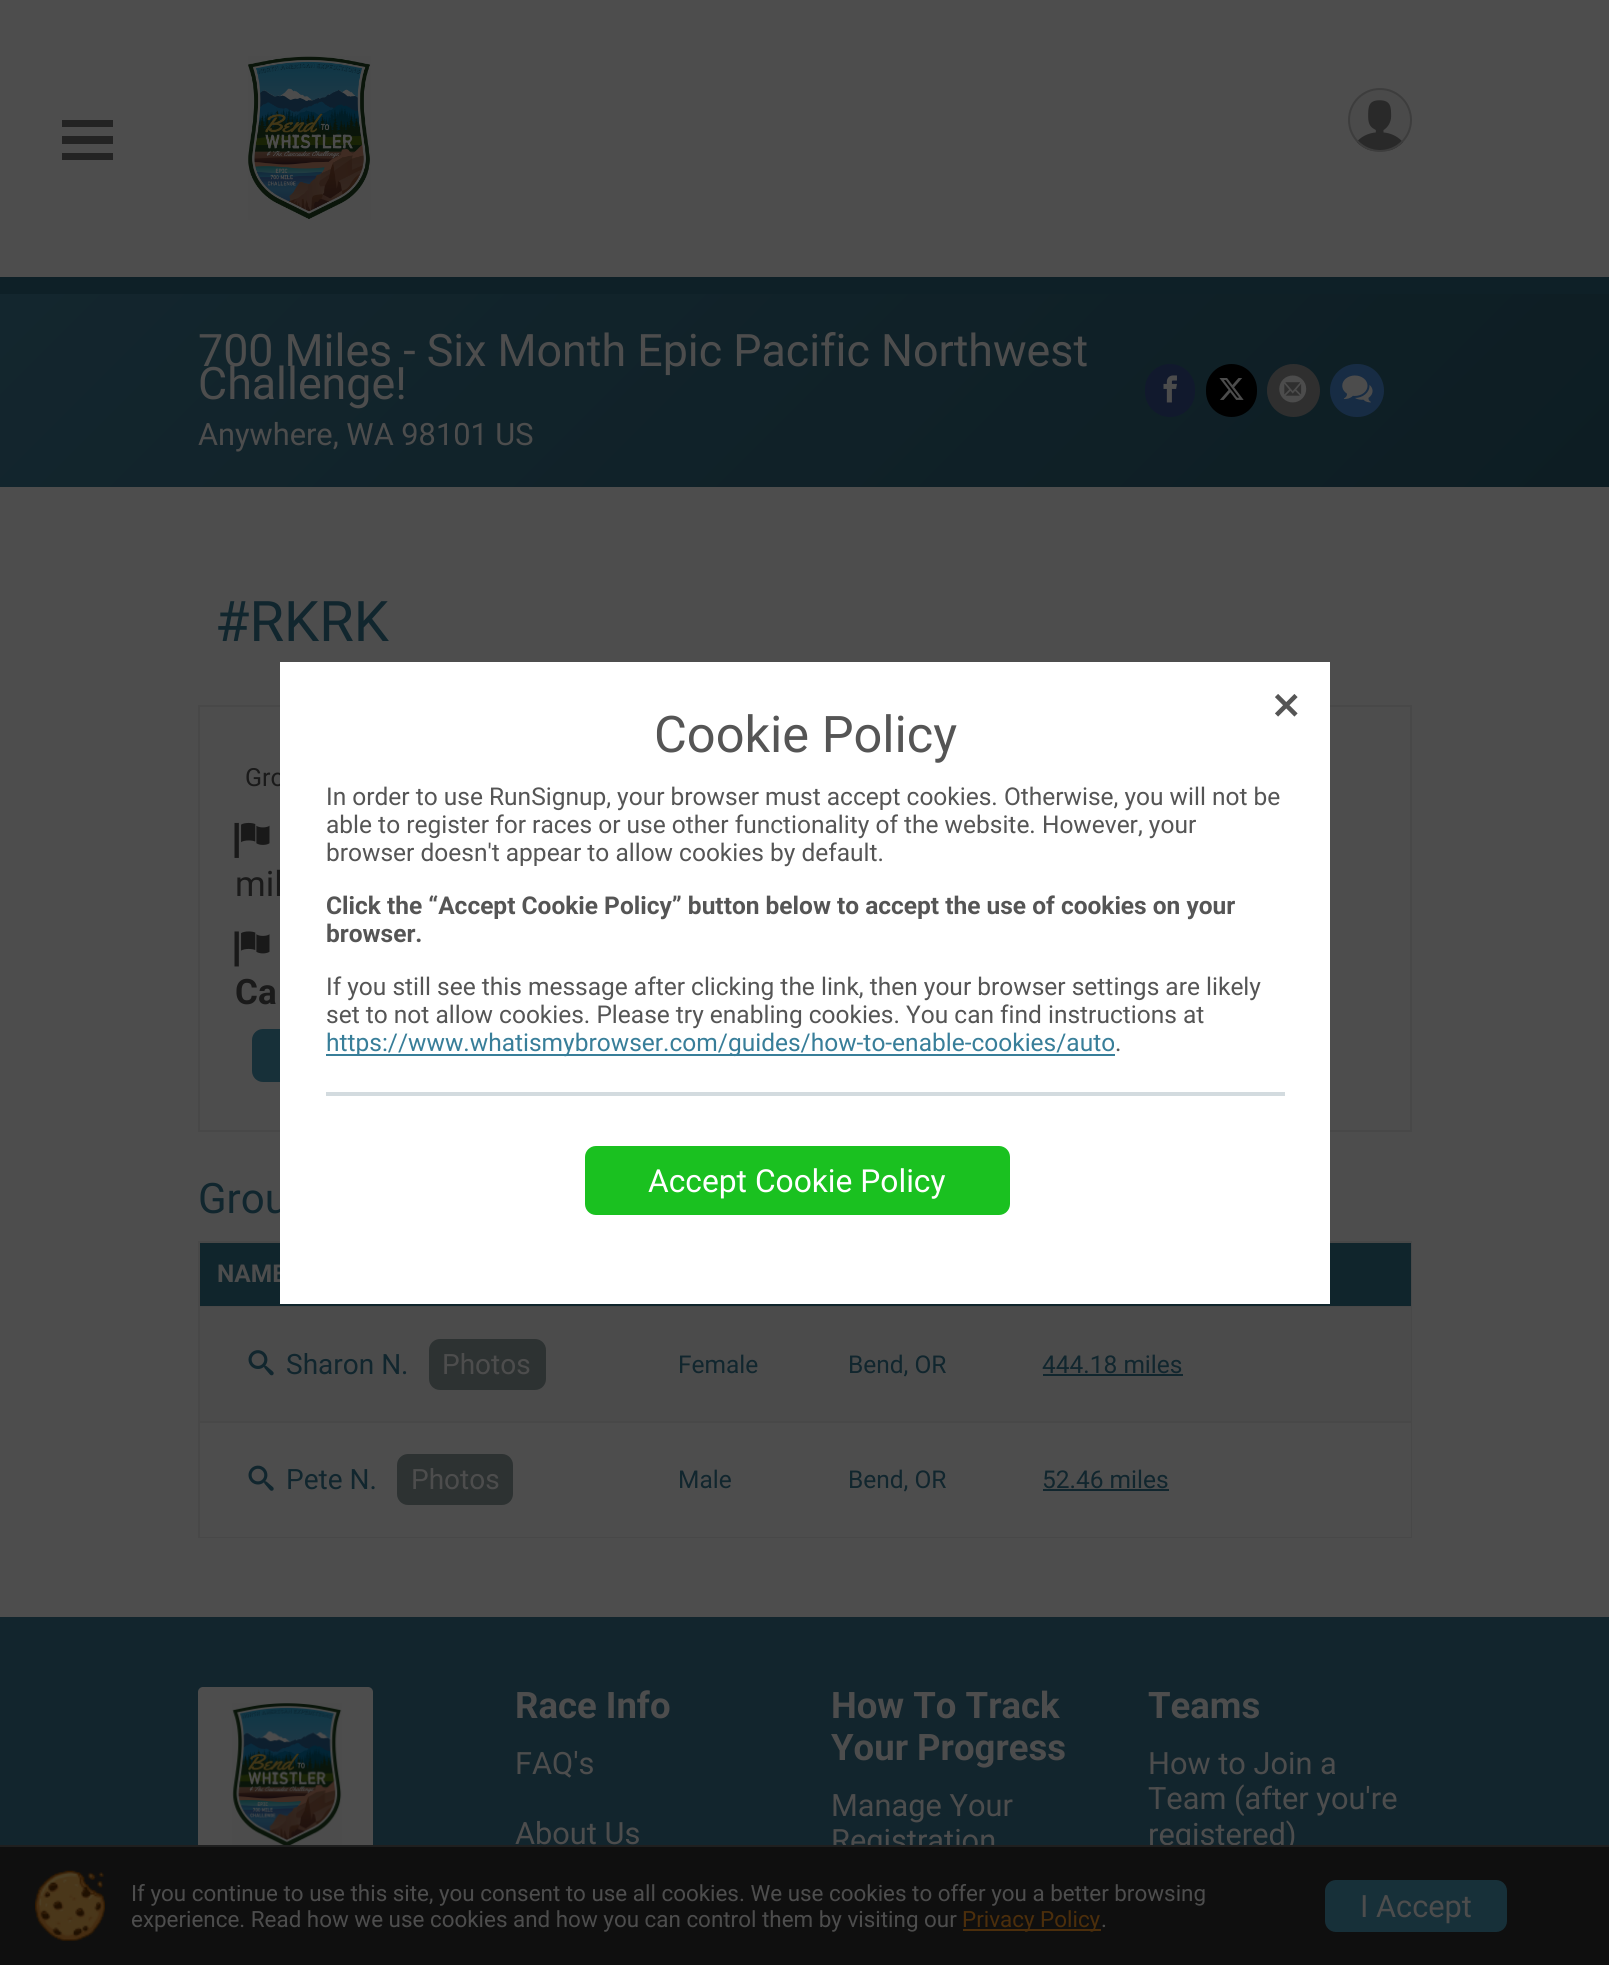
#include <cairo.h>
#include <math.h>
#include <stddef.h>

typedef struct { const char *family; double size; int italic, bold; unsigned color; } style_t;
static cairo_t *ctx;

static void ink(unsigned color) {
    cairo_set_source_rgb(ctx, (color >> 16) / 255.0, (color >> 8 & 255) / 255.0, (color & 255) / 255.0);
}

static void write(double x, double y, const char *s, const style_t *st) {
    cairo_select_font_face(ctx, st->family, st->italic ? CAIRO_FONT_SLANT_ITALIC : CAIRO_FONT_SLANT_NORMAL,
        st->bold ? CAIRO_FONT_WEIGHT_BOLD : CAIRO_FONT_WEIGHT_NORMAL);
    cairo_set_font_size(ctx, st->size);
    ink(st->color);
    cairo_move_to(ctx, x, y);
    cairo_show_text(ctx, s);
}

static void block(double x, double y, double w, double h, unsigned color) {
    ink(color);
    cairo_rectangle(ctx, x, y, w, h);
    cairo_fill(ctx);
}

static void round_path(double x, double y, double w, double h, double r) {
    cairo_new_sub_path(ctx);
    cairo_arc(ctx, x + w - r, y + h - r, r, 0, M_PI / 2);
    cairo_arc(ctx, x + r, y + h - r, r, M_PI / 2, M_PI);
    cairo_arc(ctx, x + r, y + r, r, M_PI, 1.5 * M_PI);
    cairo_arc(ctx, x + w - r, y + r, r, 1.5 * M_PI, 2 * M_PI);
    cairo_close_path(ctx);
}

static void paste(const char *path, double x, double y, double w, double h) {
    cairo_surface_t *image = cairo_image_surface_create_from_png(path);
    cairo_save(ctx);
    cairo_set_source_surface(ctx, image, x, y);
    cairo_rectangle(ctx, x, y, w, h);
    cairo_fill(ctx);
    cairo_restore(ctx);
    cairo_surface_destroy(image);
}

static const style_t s1 = {"Roboto", 44.75, 0, 0, 0x4d4d4d};
static const style_t s2 = {"Roboto", 30.75, 0, 0, 0x4d4d4d};
static const style_t s3 = {"Roboto", 56, 0, 0, 0x11262e};
static const style_t s4 = {"Roboto", 25, 0, 0, 0x1a1a1a};
static const style_t s5 = {"Roboto", 35, 0, 0, 0x1a1a1a};
static const style_t s6 = {"Roboto", 35, 0, 1, 0x1a1a1a};
static const style_t s7 = {"Roboto", 42, 0, 0, 0x11262e};
static const style_t s8 = {"Roboto", 24.5, 0, 1, 0x4d4d4d};
static const style_t s9 = {"Roboto", 28, 0, 0, 0x11262e};
static const style_t s10 = {"Roboto", 28, 0, 0, 0x4d4d4d};
static const style_t s11 = {"Roboto", 24.5, 0, 0, 0x11262e};
static const style_t s12 = {"Roboto", 36.5, 0, 1, 0x4d4d4d};
static const style_t s13 = {"Roboto", 50.5, 0, 0, 0x555555};
static const style_t s14 = {"Roboto", 24.5, 0, 0, 0x555555};
static const style_t s15 = {"Roboto", 24.5, 0, 1, 0x555555};
static const style_t s16 = {"Roboto", 24.5, 0, 0, 0x387e99};
static const style_t s17 = {"Roboto", 31.75, 0, 0, 0xffffff};
static const style_t s18 = {"Roboto", 22.4, 0, 0, 0x4d4d4d};
static const style_t s19 = {"Roboto", 22.4, 0, 0, 0x4c2e0b};

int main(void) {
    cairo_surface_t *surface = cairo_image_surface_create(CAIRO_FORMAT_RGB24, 1609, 1965);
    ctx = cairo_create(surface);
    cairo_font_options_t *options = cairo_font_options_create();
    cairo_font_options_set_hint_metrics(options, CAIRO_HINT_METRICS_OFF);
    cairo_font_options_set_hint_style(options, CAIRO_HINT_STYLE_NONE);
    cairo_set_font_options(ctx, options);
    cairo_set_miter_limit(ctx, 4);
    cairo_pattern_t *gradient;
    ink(0x4d4d4d);
    cairo_paint(ctx);
    ink(0x232323);
    cairo_new_path(ctx);
    cairo_move_to(ctx, 113, 120);
    cairo_line_to(ctx, 113, 127);
    cairo_line_to(ctx, 62, 127);
    cairo_line_to(ctx, 62, 120);
    cairo_close_path(ctx);
    cairo_move_to(ctx, 113, 136);
    cairo_line_to(ctx, 113, 144);
    cairo_line_to(ctx, 62, 144);
    cairo_line_to(ctx, 62, 136);
    cairo_close_path(ctx);
    cairo_move_to(ctx, 113, 153);
    cairo_line_to(ctx, 113, 160);
    cairo_line_to(ctx, 62, 160);
    cairo_line_to(ctx, 62, 153);
    cairo_close_path(ctx);
    cairo_fill(ctx);
    paste("pic1.png", 248, 56, 123, 164);
    paste("pic2.png", 1349, 89, 61, 62);
    cairo_arc(ctx, 1380, 120, 31, 0, 2 * M_PI);
    ink(0x3d3d3d);
    cairo_stroke(ctx);
    gradient = cairo_pattern_create_linear(1256, 841, 354, -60);
    cairo_pattern_add_color_stop_rgba(gradient, 0, 0.051, 0.114, 0.137, 1);
    cairo_pattern_add_color_stop_rgba(gradient, 1, 0.075, 0.149, 0.18, 1);
    cairo_set_source(ctx, gradient);
    cairo_pattern_destroy(gradient);
    cairo_rectangle(ctx, 0, 294, 1609, 193);
    cairo_fill(ctx);
    block(0, 277, 1609, 17, 0x0e2027);
    write(198, 366, "700 Miles - Six Month Epic Pacific Northwest", &s1);
    write(198, 399, "Challenge!", &s1);
    write(198, 445, "Anywhere, WA 98101 US", &s2);
    ink(0x11192d);
    round_path(1145, 364, 50, 53, 25);
    cairo_fill(ctx);
    paste("pic3.png", 1163, 375, 14, 28);
    ink(0x000000);
    round_path(1206, 364, 51, 53, 25.5);
    cairo_fill(ctx);
    paste("pic4.png", 1219, 378, 25, 22);
    ink(0x2f2f2f);
    cairo_arc(ctx, 1293.5, 390.5, 26.5, 0, 2 * M_PI);
    cairo_fill(ctx);
    paste("pic5.png", 1279, 375, 28, 28);
    ink(0x172c44);
    round_path(1330, 364, 54, 53, 26.5);
    cairo_fill(ctx);
    paste("pic6.png", 1342, 375, 31, 28);
    write(215, 641, "#RKRK", &s3);
    cairo_rectangle(ctx, 199, 706, 726, 425);
    ink(0x484848);
    cairo_stroke(ctx);
    write(245, 786, "Gro", &s4);
    paste("pic7.png", 234, 822, 36, 36);
    write(235, 896, "mil", &s5);
    paste("pic8.png", 234, 931, 36, 36);
    write(235, 1004, "Ca", &s6);
    ink(0x173039);
    round_path(252, 1029, 310, 53, 11);
    cairo_fill(ctx);
    cairo_rectangle(ctx, 971, 706, 440, 425);
    ink(0x484848);
    cairo_stroke(ctx);
    write(198, 1213, "Grou", &s7);
    block(198, 1241, 1214, 297, 0x484848);
    block(200, 1243, 1211, 63, 0x10252c);
    write(217, 1282, "NAME", &s8);
    block(200, 1307, 1211, 114, 0x4b4b4b);
    paste("pic9.png", 248, 1350, 26, 26);
    write(286, 1374, "Sharon N.", &s9);
    ink(0x2d3232);
    round_path(429, 1339, 117, 51, 11);
    cairo_fill(ctx);
    write(442, 1374, "Photos", &s10);
    write(678, 1373, "Female", &s11);
    write(848, 1373, "Bend, OR", &s11);
    write(1042, 1373, "444.18 miles", &s11);
    block(1043, 1374, 140, 2, 0x11262e);
    block(200, 1423, 1211, 114, 0x4d4d4d);
    paste("pic10.png", 248, 1465, 26, 26);
    write(286, 1489, "Pete N.", &s9);
    ink(0x2d3232);
    round_path(397, 1454, 116, 51, 11);
    cairo_fill(ctx);
    write(411, 1489, "Photos", &s10);
    write(678, 1488, "Male", &s11);
    write(848, 1488, "Bend, OR", &s11);
    write(1042, 1488, "52.46 miles", &s11);
    block(1043, 1489, 126, 2, 0x11262e);
    block(0, 1617, 1609, 228, 0x12252d);
    ink(0x4d4d4d);
    round_path(198, 1687, 175, 175, 5);
    cairo_fill(ctx);
    paste("pic11.png", 232, 1703, 110, 142);
    write(515, 1718, "Race Info", &s12);
    write(515, 1774, "FAQ's", &s2);
    write(515, 1844, "About Us", &s2);
    write(831, 1718, "How To Track", &s12);
    write(831, 1760, "Your Progress", &s12);
    write(831, 1816, "Manage Your", &s2);
    write(831, 1851, "Registration", &s2);
    write(1148, 1718, "Teams", &s12);
    write(1148, 1774, "How to Join a", &s2);
    write(1148, 1809, "Team (after you're", &s2);
    write(1148, 1845, "registered)", &s2);
    cairo_rectangle(ctx, 281, 663, 1048, 640);
    ink(0xffffff);
    cairo_stroke(ctx);
    block(282, 664, 1046, 638, 0xffffff);
    paste("pic12.png", 1275, 694, 23, 23);
    write(654, 752, "Cookie Policy", &s13);
    write(326, 805, "In order to use RunSignup, your browser must accept cookies. Otherwise, you will not be", &s14);
    write(326, 833, "able to register for races or use other functionality of the website. However, your", &s14);
    write(326, 861, "browser doesn't appear to allow cookies by default.", &s14);
    write(326, 914, "Click the “Accept Cookie Policy” button below to accept the use of cookies on your", &s15);
    write(326, 942, "browser.", &s15);
    write(326, 995, "If you still see this message after clicking the link, then your browser settings are likely", &s14);
    write(326, 1023, "set to not allow cookies. Please try enabling cookies. You can find instructions at", &s14);
    block(326, 1054, 789, 2, 0x387e99);
    write(326, 1051, "https://www.whatismybrowser.com/guides/how-to-enable-cookies/auto", &s16);
    write(1115, 1051, ".", &s14);
    block(326, 1092, 959, 4, 0xd3dbdf);
    ink(0x1ac120);
    round_path(585, 1146, 425, 69, 11);
    cairo_fill(ctx);
    write(648, 1192, "Accept Cookie Policy", &s17);
    block(0, 1847, 1609, 118, 0x0f0f0f);
    block(0, 1845, 1609, 2, 0x1f1f1f);
    paste("pic13.png", 35, 1870, 70, 71);
    write(131, 1901, "If you continue to use this site, you consent to use all cookies. We use cookies to offer you a better browsing", &s18);
    write(131, 1927, "experience. Read how we use cookies and how you can control them by visiting our", &s18);
    block(963, 1929, 138, 2, 0x4c2e0b);
    write(962, 1927, "Privacy Policy", &s19);
    write(1101, 1927, ".", &s18);
    ink(0x173039);
    round_path(1325, 1880, 182, 52, 11);
    cairo_fill(ctx);
    write(1360, 1917, "I Accept", &s2);
    cairo_surface_write_to_png(surface, "screenshot.png");
    cairo_font_options_destroy(options);
    cairo_destroy(ctx);
    cairo_surface_destroy(surface);
    return 0;
}
